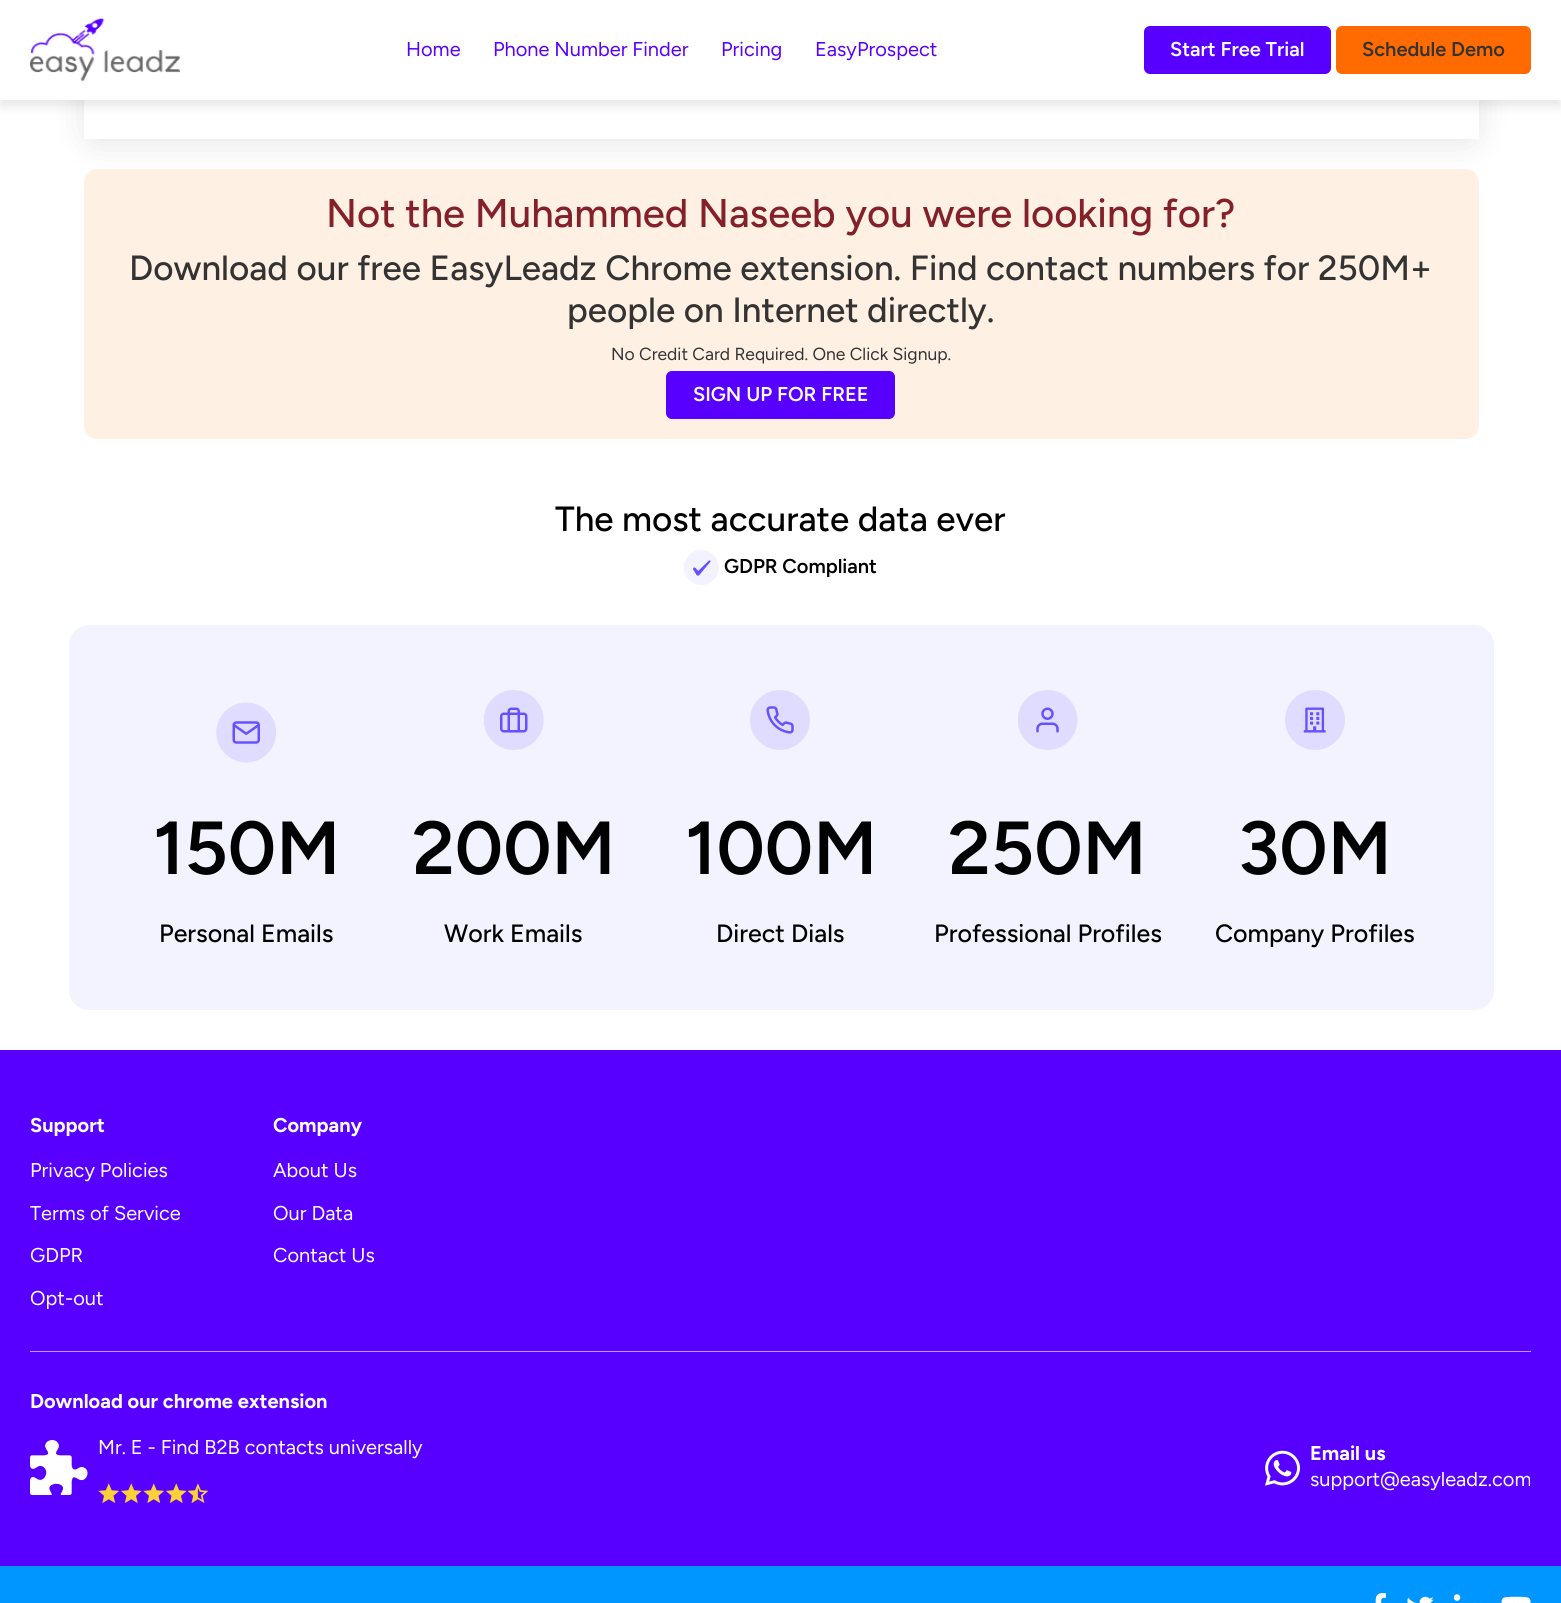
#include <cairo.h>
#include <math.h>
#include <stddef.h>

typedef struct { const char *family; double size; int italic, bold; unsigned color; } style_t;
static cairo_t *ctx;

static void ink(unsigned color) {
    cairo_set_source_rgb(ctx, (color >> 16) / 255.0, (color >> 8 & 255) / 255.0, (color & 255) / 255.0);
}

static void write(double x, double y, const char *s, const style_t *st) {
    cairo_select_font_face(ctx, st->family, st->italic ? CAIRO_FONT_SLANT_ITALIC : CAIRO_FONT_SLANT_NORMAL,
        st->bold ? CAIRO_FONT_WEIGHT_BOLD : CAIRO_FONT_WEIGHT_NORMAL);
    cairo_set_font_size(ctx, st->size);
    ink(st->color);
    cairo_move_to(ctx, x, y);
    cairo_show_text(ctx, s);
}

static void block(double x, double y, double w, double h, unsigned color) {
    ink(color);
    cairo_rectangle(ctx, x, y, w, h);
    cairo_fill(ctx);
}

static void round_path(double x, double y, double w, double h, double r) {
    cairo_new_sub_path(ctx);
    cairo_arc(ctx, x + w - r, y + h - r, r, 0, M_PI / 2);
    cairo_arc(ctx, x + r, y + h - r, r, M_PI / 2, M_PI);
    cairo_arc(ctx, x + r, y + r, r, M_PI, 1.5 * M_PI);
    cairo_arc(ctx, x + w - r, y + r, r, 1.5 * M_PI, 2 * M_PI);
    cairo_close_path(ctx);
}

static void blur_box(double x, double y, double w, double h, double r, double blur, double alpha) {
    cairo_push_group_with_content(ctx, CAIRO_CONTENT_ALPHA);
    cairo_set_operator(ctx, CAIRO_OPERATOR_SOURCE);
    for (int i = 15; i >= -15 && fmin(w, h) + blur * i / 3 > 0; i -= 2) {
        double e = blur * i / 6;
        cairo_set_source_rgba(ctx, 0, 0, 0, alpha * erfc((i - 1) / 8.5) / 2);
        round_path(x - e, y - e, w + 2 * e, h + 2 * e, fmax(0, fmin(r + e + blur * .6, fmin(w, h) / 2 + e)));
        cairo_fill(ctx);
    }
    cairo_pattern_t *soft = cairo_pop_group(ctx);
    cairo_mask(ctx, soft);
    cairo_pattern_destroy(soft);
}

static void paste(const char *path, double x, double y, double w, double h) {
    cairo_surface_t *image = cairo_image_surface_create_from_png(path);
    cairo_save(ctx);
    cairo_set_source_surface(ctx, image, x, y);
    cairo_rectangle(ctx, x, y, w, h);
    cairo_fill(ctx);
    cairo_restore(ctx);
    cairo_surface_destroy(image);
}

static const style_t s1 = {"Figtree", 20, 0, 0, 0x5800ff};
static const style_t s2 = {"Figtree SemiBold", 20, 0, 0, 0xffffff};
static const style_t s3 = {"Figtree SemiBold", 20, 0, 0, 0x333333};
static const style_t s4 = {"Figtree Medium", 40, 0, 0, 0x842029};
static const style_t s5 = {"Figtree Medium", 35, 0, 0, 0x333333};
static const style_t s6 = {"Figtree", 17.5, 0, 0, 0x333333};
static const style_t s7 = {"Figtree Medium", 35, 0, 0, 0x000000};
static const style_t s8 = {"Figtree SemiBold", 20, 0, 0, 0x000000};
static const style_t s9 = {"Figtree SemiBold", 75, 0, 0, 0x000000};
static const style_t s10 = {"Figtree Medium", 25, 0, 0, 0x000000};
static const style_t s11 = {"Figtree", 20, 0, 1, 0xffffff};
static const style_t s12 = {"Figtree", 20, 0, 0, 0xffffff};

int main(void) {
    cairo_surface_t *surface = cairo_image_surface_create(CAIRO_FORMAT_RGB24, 1561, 1603);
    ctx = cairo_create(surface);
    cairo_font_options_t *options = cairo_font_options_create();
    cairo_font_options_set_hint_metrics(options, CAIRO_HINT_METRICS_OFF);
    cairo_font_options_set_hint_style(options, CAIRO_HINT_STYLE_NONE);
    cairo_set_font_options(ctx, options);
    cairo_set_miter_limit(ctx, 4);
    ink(0xffffff);
    cairo_paint(ctx);
    ink(0x000000);
    blur_box(84, -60, 1395, 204, 13, 15.5, 0.1);
    block(84, 100, 1395, 39, 0xffffff);
    ink(0x000000);
    blur_box(0, 6, 1561, 100, 0, 6, 0.1);
    block(0, 0, 1561, 100, 0xffffff);
    paste("pic1.png", 30, 18, 150, 64);
    write(406, 56, "Home", &s1);
    write(493, 56, "Phone Number Finder", &s1);
    write(721, 56, "Pricing", &s1);
    write(815, 56, "EasyProspect", &s1);
    round_path(1144, 26, 187, 48, 6);
    cairo_fill(ctx);
    write(1170, 56, "Start Free Trial", &s2);
    ink(0xff6b00);
    round_path(1336, 26, 195, 48, 6);
    cairo_fill(ctx);
    write(1362, 56, "Schedule Demo", &s3);
    ink(0xfff0e4);
    round_path(84, 169, 1395, 270, 13);
    cairo_fill(ctx);
    write(326, 227, "Not the Muhammed Naseeb you were looking for?", &s4);
    write(129, 280, "Download our free EasyLeadz Chrome extension. Find contact numbers for 250M+", &s5);
    write(567, 322, "people on Internet directly.", &s5);
    write(611, 360, "No Credit Card Required. One Click Signup.", &s6);
    ink(0x5800ff);
    round_path(666, 371, 229, 48, 6);
    cairo_fill(ctx);
    write(693, 401, "SIGN UP FOR FREE", &s2);
    write(555, 531, "The most accurate data ever", &s7);
    paste("pic2.png", 684, 550, 35, 35);
    write(724, 573, "GDPR Compliant", &s8);
    ink(0xf3f2ff);
    round_path(69, 625, 1425, 385, 20);
    cairo_fill(ctx);
    paste("pic3.png", 216, 702, 60, 61);
    write(153, 874, "150M", &s9);
    write(159, 942, "Personal Emails", &s10);
    paste("pic4.png", 484, 690, 60, 60);
    write(412, 874, "200M", &s9);
    write(444, 942, "Work Emails", &s10);
    paste("pic5.png", 750, 690, 60, 60);
    write(685, 874, "100M", &s9);
    write(716, 942, "Direct Dials", &s10);
    paste("pic6.png", 1018, 690, 60, 60);
    write(948, 874, "250M", &s9);
    write(934, 942, "Professional Profiles", &s10);
    paste("pic7.png", 1285, 690, 60, 60);
    write(1238, 874, "30M", &s9);
    write(1215, 942, "Company Profiles", &s10);
    block(0, 1050, 1561, 516, 0x5800ff);
    write(30, 1132, "Support", &s11);
    write(30, 1177, "Privacy Policies", &s12);
    write(30, 1220, "Terms of Service", &s12);
    write(30, 1262, "GDPR", &s12);
    write(30, 1305, "Opt-out", &s12);
    write(273, 1132, "Company", &s11);
    write(273, 1177, "About Us", &s12);
    write(273, 1220, "Our Data", &s12);
    write(273, 1262, "Contact Us", &s12);
    block(30, 1351, 1501, 1, 0xbc99ff);
    write(30, 1408, "Download our chrome extension", &s11);
    paste("pic8.png", 30, 1440, 58, 55);
    write(98, 1454, "Mr. E - Find B2B contacts universally", &s12);
    paste("pic9.png", 98, 1483, 21, 20);
    paste("pic10.png", 121, 1483, 21, 20);
    paste("pic9.png", 143, 1483, 21, 20);
    paste("pic10.png", 166, 1483, 21, 20);
    paste("pic11.png", 188, 1483, 21, 20);
    paste("pic12.png", 1265, 1450, 35, 36);
    write(1310, 1460, "Email us", &s11);
    write(1310, 1486, "support@easyleadz.com", &s12);
    block(0, 1566, 1561, 37, 0x0096ff);
    paste("pic13.png", 1375, 1593, 11, 10);
    paste("pic14.png", 1407, 1596, 27, 7);
    paste("pic15.png", 1454, 1594, 22, 9);
    paste("pic16.png", 1501, 1596, 30, 7);
    cairo_surface_write_to_png(surface, "screenshot.png");
    cairo_font_options_destroy(options);
    cairo_destroy(ctx);
    cairo_surface_destroy(surface);
    return 0;
}
